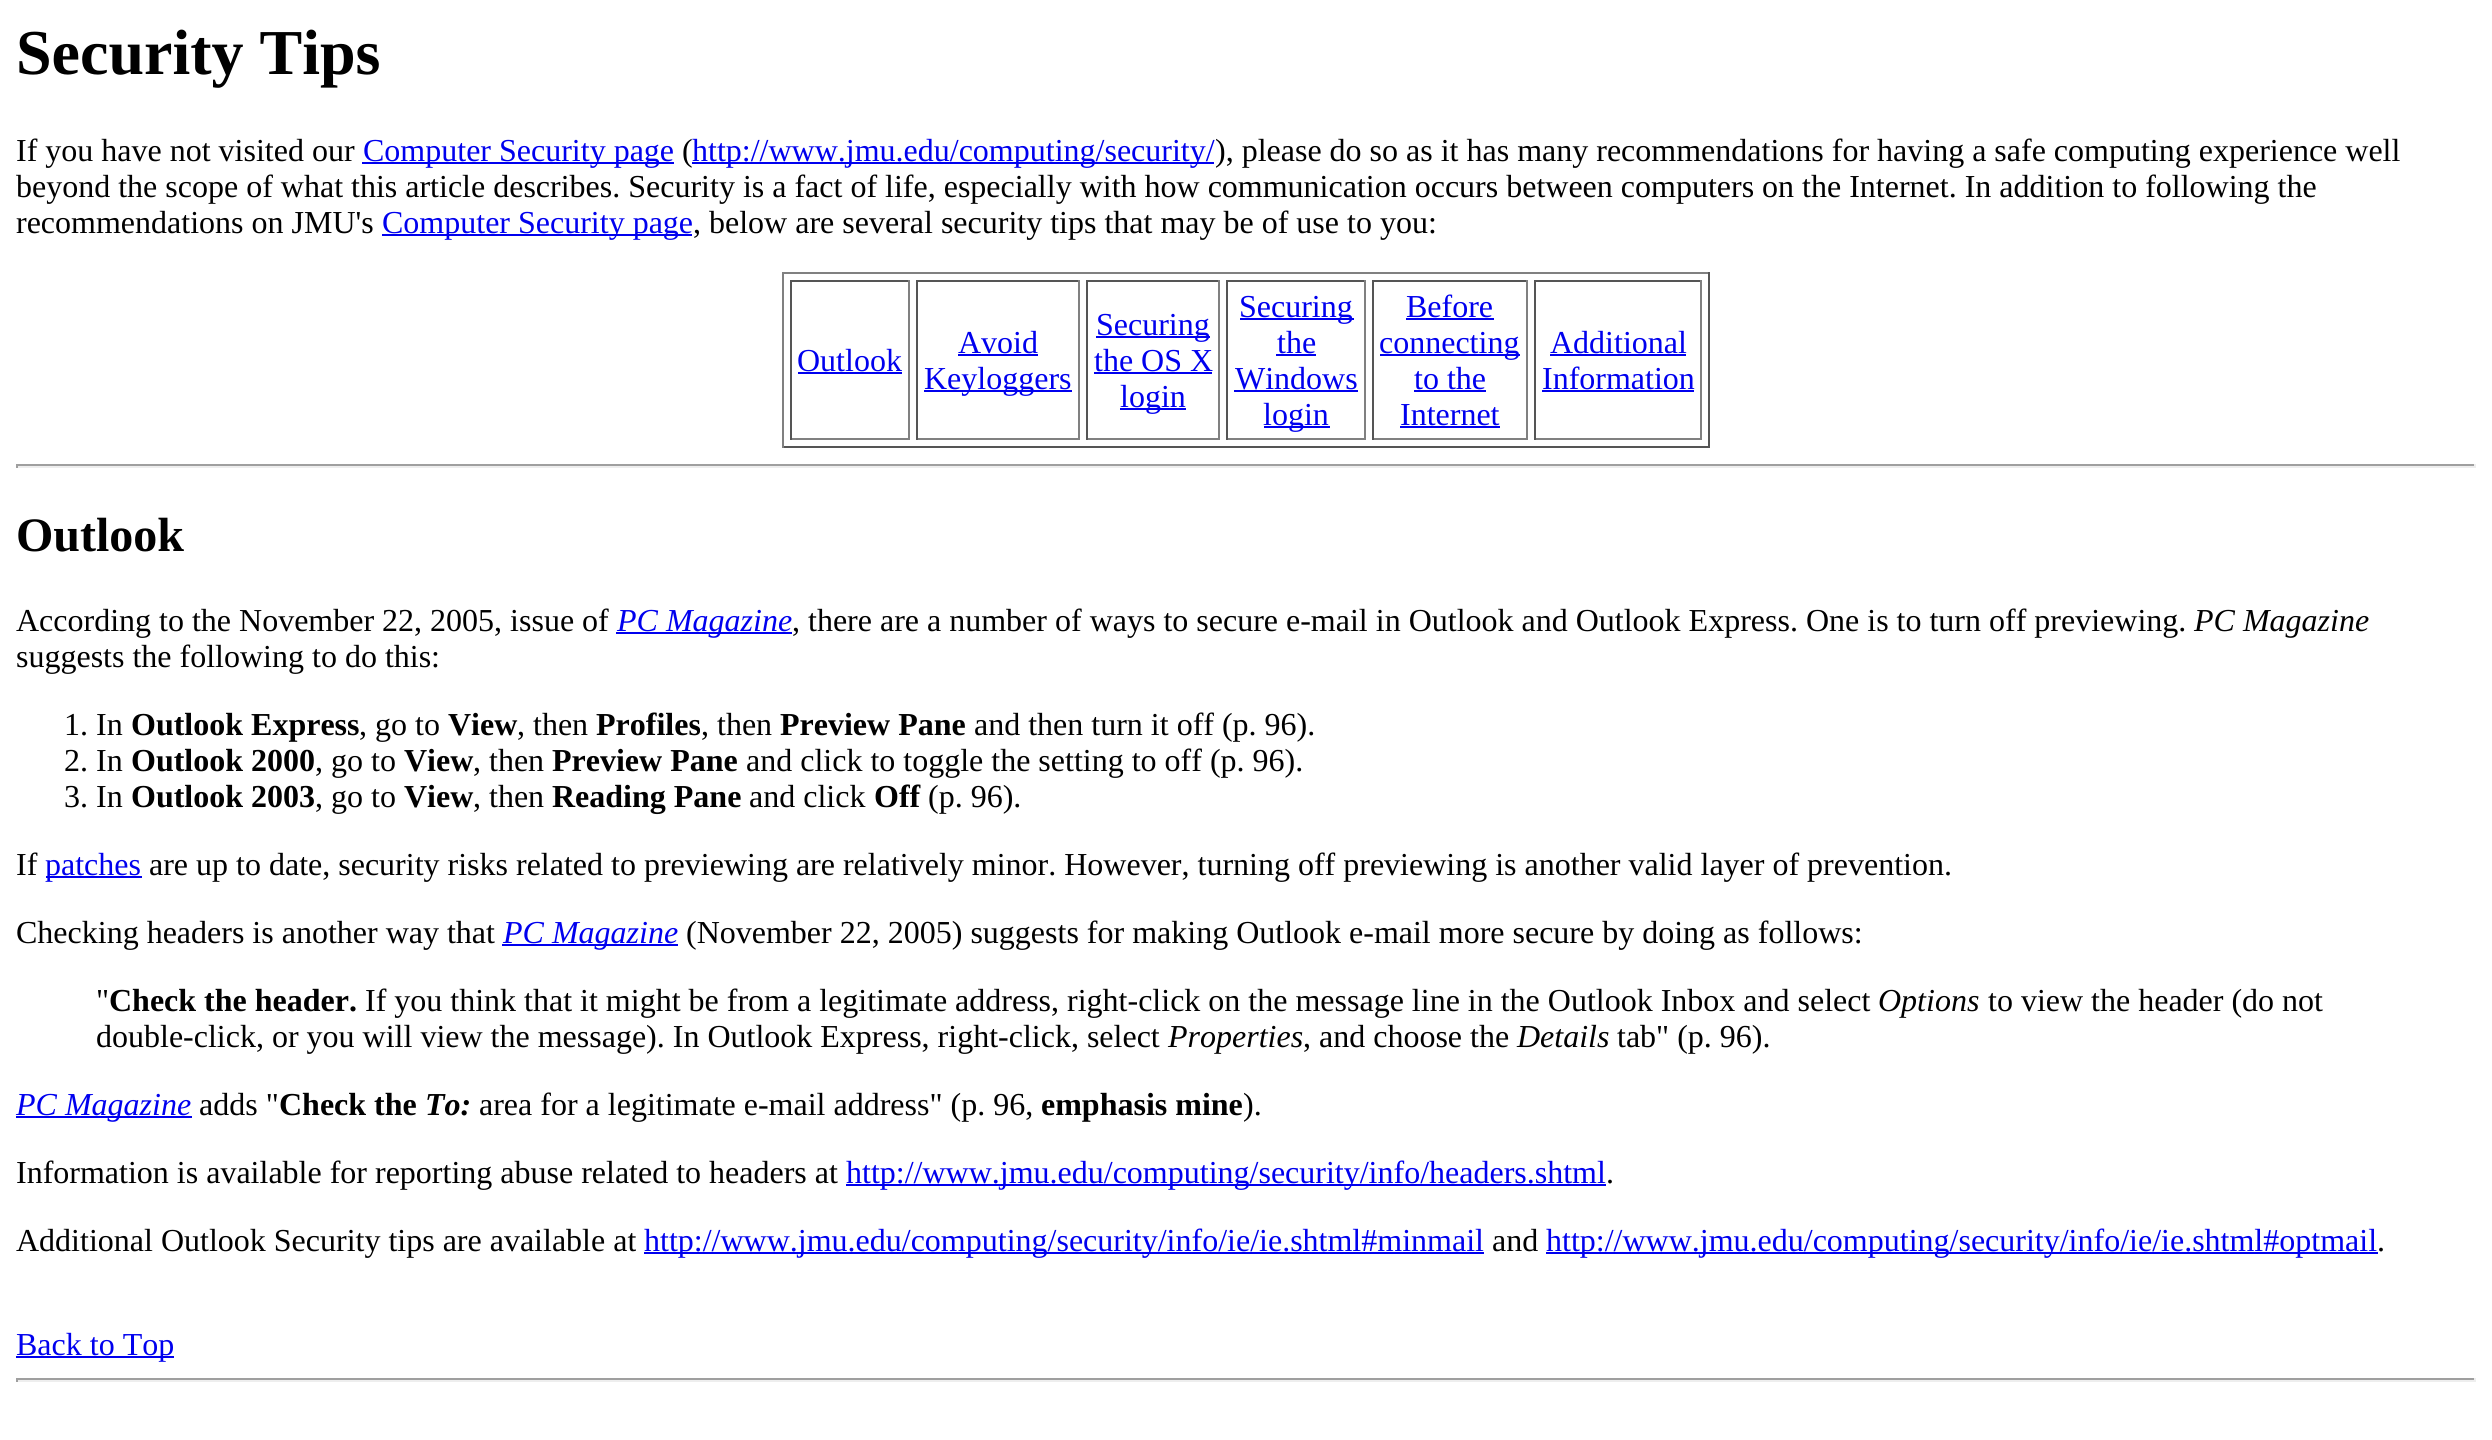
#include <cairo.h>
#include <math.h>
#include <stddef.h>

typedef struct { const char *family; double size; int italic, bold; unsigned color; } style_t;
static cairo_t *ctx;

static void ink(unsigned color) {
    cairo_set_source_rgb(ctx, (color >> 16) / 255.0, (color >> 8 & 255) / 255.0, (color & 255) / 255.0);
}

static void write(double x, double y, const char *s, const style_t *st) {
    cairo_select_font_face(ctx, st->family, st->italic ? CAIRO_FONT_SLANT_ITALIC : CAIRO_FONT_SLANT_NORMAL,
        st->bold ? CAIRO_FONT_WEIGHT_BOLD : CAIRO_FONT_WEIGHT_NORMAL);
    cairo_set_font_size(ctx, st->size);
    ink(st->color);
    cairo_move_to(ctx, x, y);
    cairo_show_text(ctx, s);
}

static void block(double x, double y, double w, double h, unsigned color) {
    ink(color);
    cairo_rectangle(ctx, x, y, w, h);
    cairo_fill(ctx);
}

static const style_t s1 = {"Liberation Serif", 64, 0, 1, 0x000000};
static const style_t s2 = {"Liberation Serif", 32, 0, 0, 0x000000};
static const style_t s3 = {"Liberation Serif", 32, 0, 0, 0x0000ee};
static const style_t s4 = {"Liberation Serif", 48, 0, 1, 0x000000};
static const style_t s5 = {"Liberation Serif", 32, 1, 0, 0x0000ee};
static const style_t s6 = {"Liberation Serif", 32, 1, 0, 0x000000};
static const style_t s7 = {"Liberation Serif", 32, 0, 1, 0x000000};
static const style_t s8 = {"Liberation Serif", 32, 1, 1, 0x000000};

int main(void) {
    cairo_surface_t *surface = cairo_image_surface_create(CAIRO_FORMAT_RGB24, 2492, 1440);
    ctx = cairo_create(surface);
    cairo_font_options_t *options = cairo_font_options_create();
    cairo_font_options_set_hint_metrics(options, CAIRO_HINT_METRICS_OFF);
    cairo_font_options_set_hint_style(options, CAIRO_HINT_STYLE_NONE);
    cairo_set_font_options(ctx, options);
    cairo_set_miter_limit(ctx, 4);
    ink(0xffffff);
    cairo_paint(ctx);
    write(16, 74, "Security Tips", &s1);
    write(16, 161, "If you have not visited our", &s2);
    block(362, 162, 312, 2, 0x0000ee);
    write(363, 161, "Computer Security page", &s3);
    write(682, 161, "(", &s2);
    block(692, 162, 522, 2, 0x0000ee);
    write(692, 161, "http://www.jmu.edu/computing/security/", &s3);
    write(1215, 161, "), please do so as it has many recommendations for having a safe computing experience well", &s2);
    write(16, 197, "beyond the scope of what this article describes. Security is a fact of life, especially with how communication occurs between computers on the Internet. In addition to following the", &s2);
    write(16, 233, "recommendations on JMU's", &s2);
    block(382, 234, 310, 2, 0x0000ee);
    write(382, 233, "Computer Security page", &s3);
    write(693, 233, ", below are several security tips that may be of use to you:", &s2);
    block(782, 272, 928, 2, 0x808080);
    block(1708, 272, 2, 176, 0x555555);
    block(782, 446, 928, 2, 0x555555);
    block(782, 272, 2, 176, 0x808080);
    block(790, 280, 120, 2, 0x555555);
    block(908, 280, 2, 160, 0x808080);
    block(790, 438, 120, 2, 0x808080);
    block(790, 280, 2, 160, 0x555555);
    write(797, 371, "Outlook", &s3);
    block(798, 372, 104, 2, 0x0000ee);
    block(916, 280, 164, 2, 0x555555);
    block(1078, 280, 2, 160, 0x808080);
    block(916, 438, 164, 2, 0x808080);
    block(916, 280, 2, 160, 0x555555);
    write(958, 353, "Avoid", &s3);
    block(958, 354, 80, 2, 0x0000ee);
    block(924, 390, 148, 2, 0x0000ee);
    write(924, 389, "Keyloggers", &s3);
    block(1086, 280, 134, 2, 0x555555);
    block(1218, 280, 2, 160, 0x808080);
    block(1086, 438, 134, 2, 0x808080);
    block(1086, 280, 2, 160, 0x555555);
    block(1096, 336, 114, 2, 0x0000ee);
    write(1096, 335, "Securing", &s3);
    write(1094, 371, "the OS X", &s3);
    block(1094, 372, 118, 2, 0x0000ee);
    block(1120, 408, 66, 2, 0x0000ee);
    write(1120, 407, "login", &s3);
    block(1226, 280, 140, 2, 0x555555);
    block(1364, 280, 2, 160, 0x808080);
    block(1226, 438, 140, 2, 0x808080);
    block(1226, 280, 2, 160, 0x555555);
    block(1240, 318, 114, 2, 0x0000ee);
    write(1239, 317, "Securing", &s3);
    write(1277, 353, "the", &s3);
    block(1276, 354, 40, 2, 0x0000ee);
    write(1235, 389, "Windows", &s3);
    block(1234, 390, 124, 2, 0x0000ee);
    block(1264, 426, 66, 2, 0x0000ee);
    write(1263, 425, "login", &s3);
    block(1372, 280, 156, 2, 0x555555);
    block(1526, 280, 2, 160, 0x808080);
    block(1372, 438, 156, 2, 0x808080);
    block(1372, 280, 2, 160, 0x555555);
    write(1406, 317, "Before", &s3);
    block(1406, 318, 88, 2, 0x0000ee);
    block(1380, 354, 140, 2, 0x0000ee);
    write(1379, 353, "connecting", &s3);
    write(1414, 389, "to the", &s3);
    block(1414, 390, 72, 2, 0x0000ee);
    write(1400, 425, "Internet", &s3);
    block(1400, 426, 100, 2, 0x0000ee);
    block(1534, 280, 168, 2, 0x555555);
    block(1700, 280, 2, 160, 0x808080);
    block(1534, 438, 168, 2, 0x808080);
    block(1534, 280, 2, 160, 0x555555);
    write(1550, 353, "Additional", &s3);
    block(1550, 354, 136, 2, 0x0000ee);
    write(1542, 389, "Information", &s3);
    block(1542, 390, 152, 2, 0x0000ee);
    block(16, 464, 2460, 2, 0x9f9f9f);
    block(2474, 464, 2, 4, 0xeeeeee);
    block(16, 466, 2460, 2, 0xeeeeee);
    block(16, 464, 2, 4, 0x9f9f9f);
    write(16, 551, "Outlook", &s4);
    write(16, 631, "According to the November 22, 2005, issue of", &s2);
    block(616, 632, 176, 2, 0x0000ee);
    write(617, 631, "PC Magazine", &s5);
    write(792, 631, ", there are a number of ways to secure e-mail in Outlook and Outlook Express. One is to turn off previewing.", &s2);
    write(2194, 631, "PC Magazine", &s6);
    write(16, 667, "suggests the following to do this:", &s2);
    write(64, 735, "1. In", &s2);
    write(131, 735, "Outlook Express", &s7);
    write(359, 735, ", go to", &s2);
    write(448, 735, "View", &s7);
    write(517, 735, ", then", &s2);
    write(596, 735, "Profiles", &s7);
    write(701, 735, ", then", &s2);
    write(780, 735, "Preview Pane", &s7);
    write(974, 735, "and then turn it off (p. 96).", &s2);
    write(64, 771, "2. In", &s2);
    write(131, 771, "Outlook 2000", &s7);
    write(315, 771, ", go to", &s2);
    write(404, 771, "View", &s7);
    write(473, 771, ", then", &s2);
    write(552, 771, "Preview Pane", &s7);
    write(746, 771, "and click to toggle the setting to off (p. 96).", &s2);
    write(64, 807, "3. In", &s2);
    write(131, 807, "Outlook 2003", &s7);
    write(315, 807, ", go to", &s2);
    write(404, 807, "View", &s7);
    write(473, 807, ", then", &s2);
    write(552, 807, "Reading Pane", &s7);
    write(749, 807, "and click", &s2);
    write(874, 807, "Off", &s7);
    write(928, 807, "(p. 96).", &s2);
    write(16, 875, "If", &s2);
    block(46, 876, 96, 2, 0x0000ee);
    write(45, 875, "patches", &s3);
    write(149, 875, "are up to date, security risks related to previewing are relatively minor. However, turning off previewing is another valid layer of prevention.", &s2);
    write(16, 943, "Checking headers is another way that", &s2);
    block(502, 944, 176, 2, 0x0000ee);
    write(503, 943, "PC Magazine", &s5);
    write(686, 943, "(November 22, 2005) suggests for making Outlook e-mail more secure by doing as follows:", &s2);
    write(96, 1011, "\"", &s2);
    write(109, 1011, "Check the header.", &s7);
    write(365, 1011, "If you think that it might be from a legitimate address, right-click on the message line in the Outlook Inbox and select", &s2);
    write(1878, 1011, "Options", &s6);
    write(1988, 1011, "to view the header (do not", &s2);
    write(96, 1047, "double-click, or you will view the message). In Outlook Express, right-click, select", &s2);
    write(1168, 1047, "Properties", &s6);
    write(1303, 1047, ", and choose the", &s2);
    write(1517, 1047, "Details", &s6);
    write(1617, 1047, "tab\" (p. 96).", &s2);
    block(16, 1116, 176, 2, 0x0000ee);
    write(16, 1115, "PC Magazine", &s5);
    write(199, 1115, "adds \"", &s2);
    write(279, 1115, "Check the", &s7);
    write(425, 1115, "To:", &s8);
    write(479, 1115, "area for a legitimate e-mail address\" (p. 96,", &s2);
    write(1041, 1115, "emphasis mine", &s7);
    write(1243, 1115, ").", &s2);
    write(16, 1183, "Information is available for reporting abuse related to headers at", &s2);
    block(846, 1184, 760, 2, 0x0000ee);
    write(846, 1183, "http://www.jmu.edu/computing/security/info/headers.shtml", &s3);
    write(1606, 1183, ".", &s2);
    write(16, 1251, "Additional Outlook Security tips are available at", &s2);
    block(644, 1252, 840, 2, 0x0000ee);
    write(644, 1251, "http://www.jmu.edu/computing/security/info/ie/ie.shtml#minmail", &s3);
    write(1492, 1251, "and", &s2);
    block(1546, 1252, 832, 2, 0x0000ee);
    write(1546, 1251, "http://www.jmu.edu/computing/security/info/ie/ie.shtml#optmail", &s3);
    write(2377, 1251, ".", &s2);
    block(16, 1356, 158, 2, 0x0000ee);
    write(16, 1355, "Back to Top", &s3);
    block(16, 1378, 2460, 2, 0x9f9f9f);
    block(2474, 1378, 2, 4, 0xeeeeee);
    block(16, 1380, 2460, 2, 0xeeeeee);
    block(16, 1378, 2, 4, 0x9f9f9f);
    cairo_surface_write_to_png(surface, "screenshot.png");
    cairo_font_options_destroy(options);
    cairo_destroy(ctx);
    cairo_surface_destroy(surface);
    return 0;
}
